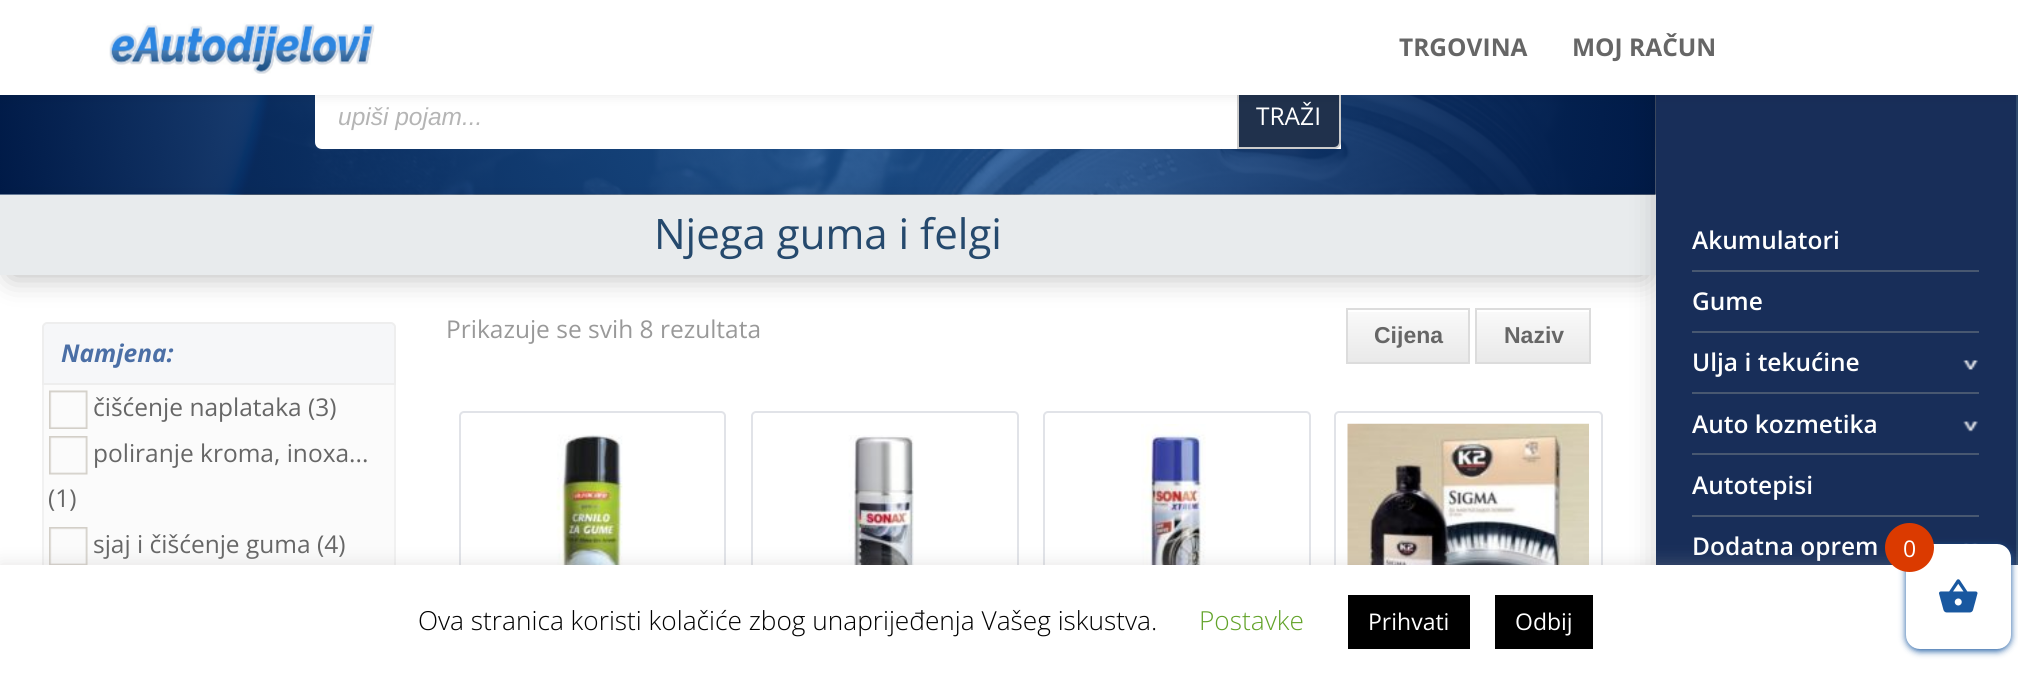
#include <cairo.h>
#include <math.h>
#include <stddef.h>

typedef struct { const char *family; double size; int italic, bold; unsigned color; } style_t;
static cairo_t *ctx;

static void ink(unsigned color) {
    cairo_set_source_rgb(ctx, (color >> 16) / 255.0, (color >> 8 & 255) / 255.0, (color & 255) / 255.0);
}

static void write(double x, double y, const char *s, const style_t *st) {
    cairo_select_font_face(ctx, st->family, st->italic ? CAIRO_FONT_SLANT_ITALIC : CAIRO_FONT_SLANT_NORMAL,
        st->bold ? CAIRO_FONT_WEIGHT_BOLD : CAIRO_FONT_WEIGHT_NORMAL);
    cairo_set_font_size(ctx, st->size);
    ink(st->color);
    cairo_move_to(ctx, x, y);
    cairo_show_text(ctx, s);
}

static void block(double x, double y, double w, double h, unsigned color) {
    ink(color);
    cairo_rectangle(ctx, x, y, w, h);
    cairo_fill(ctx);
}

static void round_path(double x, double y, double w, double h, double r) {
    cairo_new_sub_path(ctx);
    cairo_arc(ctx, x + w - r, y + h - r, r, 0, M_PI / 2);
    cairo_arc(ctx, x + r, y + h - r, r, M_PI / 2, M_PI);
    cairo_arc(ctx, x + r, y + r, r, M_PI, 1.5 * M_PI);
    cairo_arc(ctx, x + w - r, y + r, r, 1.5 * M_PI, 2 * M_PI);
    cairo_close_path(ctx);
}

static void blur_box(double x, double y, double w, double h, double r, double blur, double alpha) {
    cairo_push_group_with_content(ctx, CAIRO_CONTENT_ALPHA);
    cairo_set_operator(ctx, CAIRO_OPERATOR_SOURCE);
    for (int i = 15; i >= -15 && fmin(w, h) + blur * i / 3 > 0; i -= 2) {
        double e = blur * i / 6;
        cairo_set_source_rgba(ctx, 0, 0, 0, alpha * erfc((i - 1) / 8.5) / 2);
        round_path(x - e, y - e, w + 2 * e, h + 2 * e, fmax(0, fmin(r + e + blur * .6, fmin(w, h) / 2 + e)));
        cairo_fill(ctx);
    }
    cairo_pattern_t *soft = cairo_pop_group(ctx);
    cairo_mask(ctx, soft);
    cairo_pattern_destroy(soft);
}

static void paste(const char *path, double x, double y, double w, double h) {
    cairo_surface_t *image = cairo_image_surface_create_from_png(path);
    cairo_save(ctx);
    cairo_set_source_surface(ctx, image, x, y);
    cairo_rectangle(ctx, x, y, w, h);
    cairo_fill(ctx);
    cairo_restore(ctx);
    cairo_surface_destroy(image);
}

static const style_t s1 = {"Open Sans", 24.5, 0, 1, 0x666666};
static const style_t s2 = {"Liberation Sans", 24.5, 1, 0, 0xb5b5b5};
static const style_t s3 = {"Open Sans", 24.5, 0, 0, 0xffffff};
static const style_t s4 = {"Open Sans", 42, 0, 0, 0x25496d};
static const style_t s5 = {"Open Sans SemiBold", 24.5, 0, 0, 0xffffff};
static const style_t s6 = {"Open Sans", 24.5, 0, 0, 0x999999};
static const style_t s7 = {"Liberation Sans", 23, 0, 1, 0x666666};
static const style_t s8 = {"Open Sans", 24.5, 1, 1, 0x4b6fa6};
static const style_t s9 = {"Open Sans", 24.5, 0, 0, 0x666666};
static const style_t s10 = {"Open Sans", 23, 0, 0, 0xffffff};
static const style_t s11 = {"Open Sans Light", 26.25, 0, 0, 0x000000};
static const style_t s12 = {"Open Sans Light", 26.25, 0, 0, 0x62a329};

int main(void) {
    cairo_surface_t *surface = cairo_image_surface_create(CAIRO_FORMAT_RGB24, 2018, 678);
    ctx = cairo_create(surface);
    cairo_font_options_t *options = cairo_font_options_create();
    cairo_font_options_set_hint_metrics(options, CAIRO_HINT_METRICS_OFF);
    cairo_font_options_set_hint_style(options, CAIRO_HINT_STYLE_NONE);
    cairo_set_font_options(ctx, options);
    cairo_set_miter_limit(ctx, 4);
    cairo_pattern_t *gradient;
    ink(0xffffff);
    cairo_paint(ctx);
    paste("pic2.png", 0, 95, 1656, 100);
    ink(0xffffff);
    cairo_new_path(ctx);
    cairo_move_to(ctx, 322, 87);
    cairo_line_to(ctx, 1340, 87);
    cairo_line_to(ctx, 1340, 148);
    cairo_line_to(ctx, 322, 148);
    cairo_curve_to(ctx, 318.5, 148, 316, 145.5, 316, 142);
    cairo_line_to(ctx, 316, 93);
    cairo_curve_to(ctx, 316, 89.5, 318.5, 87, 322, 87);
    cairo_close_path(ctx);
    cairo_fill_preserve(ctx);
    cairo_stroke(ctx);
    ink(0x20314c);
    cairo_new_path(ctx);
    cairo_move_to(ctx, 1238, 87);
    cairo_line_to(ctx, 1334, 87);
    cairo_curve_to(ctx, 1337.5, 87, 1340, 89.5, 1340, 93);
    cairo_line_to(ctx, 1340, 142);
    cairo_curve_to(ctx, 1340, 145.5, 1337.5, 148, 1334, 148);
    cairo_line_to(ctx, 1238, 148);
    cairo_close_path(ctx);
    cairo_fill_preserve(ctx);
    ink(0xcccccc);
    cairo_stroke(ctx);
    gradient = cairo_pattern_create_linear(1348, 310, 1348, 362);
    cairo_pattern_add_color_stop_rgba(gradient, 0.05, 0.976, 0.976, 0.976, 1);
    cairo_pattern_add_color_stop_rgba(gradient, 1, 0.914, 0.914, 0.914, 1);
    cairo_set_source(ctx, gradient);
    cairo_pattern_destroy(gradient);
    cairo_rectangle(ctx, 1348, 312, 120, 50);
    cairo_fill(ctx);
    cairo_rectangle(ctx, 1347, 309, 122, 54);
    ink(0xdcdcdc);
    cairo_stroke(ctx);
    gradient = cairo_pattern_create_linear(1477, 310, 1477, 362);
    cairo_pattern_add_color_stop_rgba(gradient, 0.05, 0.976, 0.976, 0.976, 1);
    cairo_pattern_add_color_stop_rgba(gradient, 1, 0.914, 0.914, 0.914, 1);
    cairo_set_source(ctx, gradient);
    cairo_pattern_destroy(gradient);
    cairo_rectangle(ctx, 1477, 312, 112, 50);
    cairo_fill(ctx);
    cairo_rectangle(ctx, 1476, 309, 114, 54);
    ink(0xdcdcdc);
    cairo_stroke(ctx);
    cairo_save(ctx);
    cairo_set_fill_rule(ctx, CAIRO_FILL_RULE_EVEN_ODD);
    cairo_new_path(ctx);
    cairo_move_to(ctx, 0, 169);
    cairo_line_to(ctx, 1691, 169);
    cairo_line_to(ctx, 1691, 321);
    cairo_line_to(ctx, 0, 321);
    cairo_close_path(ctx);
    cairo_move_to(ctx, 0, 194);
    cairo_line_to(ctx, 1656, 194);
    cairo_line_to(ctx, 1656, 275);
    cairo_line_to(ctx, 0, 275);
    cairo_close_path(ctx);
    cairo_clip(ctx);
    ink(0x000000);
    blur_box(11, 215, 1634, 60, 0, 15, 0.3);
    cairo_restore(ctx);
    cairo_set_source_rgba(ctx, 0.208, 0.302, 0.357, 0.11);
    cairo_rectangle(ctx, 0, 194, 1656, 81);
    cairo_fill(ctx);
    ink(0x000000);
    blur_box(1664, 88, 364, 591, 0, 16, 0.3);
    block(1656, 95, 360, 470, 0x182e59);
    block(2016, 88, 2, 477, 0x2f4a6d);
    ink(0x000000);
    blur_box(0, 0, 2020, 95, 0, 6, 0.1);
    block(0, 0, 2018, 95, 0xffffff);
    paste("pic1.png", 109, 23, 266, 51);
    write(1399, 56, "TRGOVINA", &s1);
    write(1572, 56, "MOJ RAČUN", &s1);
    write(338, 125, "upiši pojam...", &s2);
    write(1256, 125, "TRAŽI", &s3);
    write(654, 249, "Njega guma i felgi", &s4);
    block(1692, 270, 287, 2, 0x485871);
    write(1692, 249, "Akumulatori", &s5);
    block(1692, 331, 287, 2, 0x485871);
    write(1692, 310, "Gume", &s5);
    block(1692, 392, 287, 2, 0x485871);
    write(1692, 371, "Ulja i tekućine", &s5);
    paste("pic3.png", 1963, 360, 15, 10);
    block(1692, 453, 287, 2, 0x485871);
    write(1692, 433, "Auto kozmetika", &s5);
    paste("pic4.png", 1963, 421, 15, 11);
    block(1692, 515, 287, 2, 0x485871);
    write(1692, 494, "Autotepisi", &s5);
    write(1692, 555, "Dodatna oprem", &s5);
    paste("pic5.png", 1964, 543, 14, 1);
    write(446, 338, "Prikazuje se svih 8 rezultata", &s6);
    write(1374, 343, "Cijena", &s7);
    write(1504, 343, "Naziv", &s7);
    round_path(460, 412, 265, 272, 4);
    ink(0xe1e3e8);
    cairo_stroke(ctx);
    paste("pic6.png", 556, 434, 67, 131);
    round_path(752, 412, 266, 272, 4);
    cairo_stroke(ctx);
    paste("pic7.png", 848, 435, 66, 130);
    round_path(1044, 412, 266, 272, 4);
    cairo_stroke(ctx);
    paste("pic8.png", 1141, 424, 65, 141);
    round_path(1335, 412, 267, 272, 4);
    cairo_stroke(ctx);
    paste("pic9.png", 1347, 423, 242, 142);
    ink(0xf6f7f9);
    cairo_new_path(ctx);
    cairo_move_to(ctx, 47, 323);
    cairo_line_to(ctx, 391, 323);
    cairo_curve_to(ctx, 393, 323, 395, 325, 395, 327);
    cairo_line_to(ctx, 395, 384);
    cairo_line_to(ctx, 43, 384);
    cairo_line_to(ctx, 43, 327);
    cairo_curve_to(ctx, 43, 325, 45, 323, 47, 323);
    cairo_close_path(ctx);
    cairo_fill_preserve(ctx);
    ink(0xeeeeee);
    cairo_stroke(ctx);
    write(61, 362, "Namjena:", &s8);
    block(44, 385, 350, 180, 0xfbfbfb);
    ink(0xf1f1f1);
    cairo_set_fill_rule(ctx, CAIRO_FILL_RULE_EVEN_ODD);
    cairo_new_path(ctx);
    cairo_move_to(ctx, 42, 385);
    cairo_line_to(ctx, 396, 385);
    cairo_line_to(ctx, 396, 569);
    cairo_curve_to(ctx, 396, 572, 393, 574, 390, 574);
    cairo_line_to(ctx, 47, 574);
    cairo_curve_to(ctx, 44, 574, 42, 572, 42, 569);
    cairo_close_path(ctx);
    cairo_move_to(ctx, 44, 385);
    cairo_line_to(ctx, 394, 385);
    cairo_line_to(ctx, 394, 569);
    cairo_curve_to(ctx, 394, 571, 392, 572, 390, 572);
    cairo_line_to(ctx, 47, 572);
    cairo_curve_to(ctx, 45, 572, 44, 571, 44, 569);
    cairo_close_path(ctx);
    cairo_fill(ctx);
    paste("pic10.png", 49, 390, 39, 39);
    write(93, 416, "čišćenje naplataka (3)", &s9);
    paste("pic11.png", 49, 436, 39, 39);
    write(93, 462, "poliranje kroma, inoxa...", &s9);
    write(48, 507, "(1)", &s9);
    paste("pic12.png", 49, 527, 39, 38);
    write(93, 553, "sjaj i čišćenje guma (4)", &s9);
    ink(0xacabab);
    blur_box(0, 564, 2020, 113, 0, 9, 0.3);
    block(0, 565, 2018, 113, 0xffffff);
    ink(0x1958a0);
    blur_box(1906, 546, 105, 105, 14, 3.5, 1);
    ink(0xffffff);
    round_path(1906, 544, 105, 105, 14);
    cairo_fill(ctx);
    ink(0xdb3a00);
    cairo_arc(ctx, 1909.5, 547.5, 24.5, 0, 2 * M_PI);
    cairo_fill(ctx);
    write(1903, 557, "0", &s10);
    paste("pic13.png", 1939, 579, 39, 34);
    write(418, 630, "Ova stranica koristi kolačiće zbog unaprijeđenja Vašeg iskustva.", &s11);
    write(1199, 630, "Postavke", &s12);
    block(1348, 595, 122, 54, 0x000000);
    write(1368, 630, "Prihvati", &s10);
    block(1495, 595, 98, 54, 0x000000);
    write(1515, 630, "Odbij", &s10);
    cairo_surface_write_to_png(surface, "screenshot.png");
    cairo_font_options_destroy(options);
    cairo_destroy(ctx);
    cairo_surface_destroy(surface);
    return 0;
}
